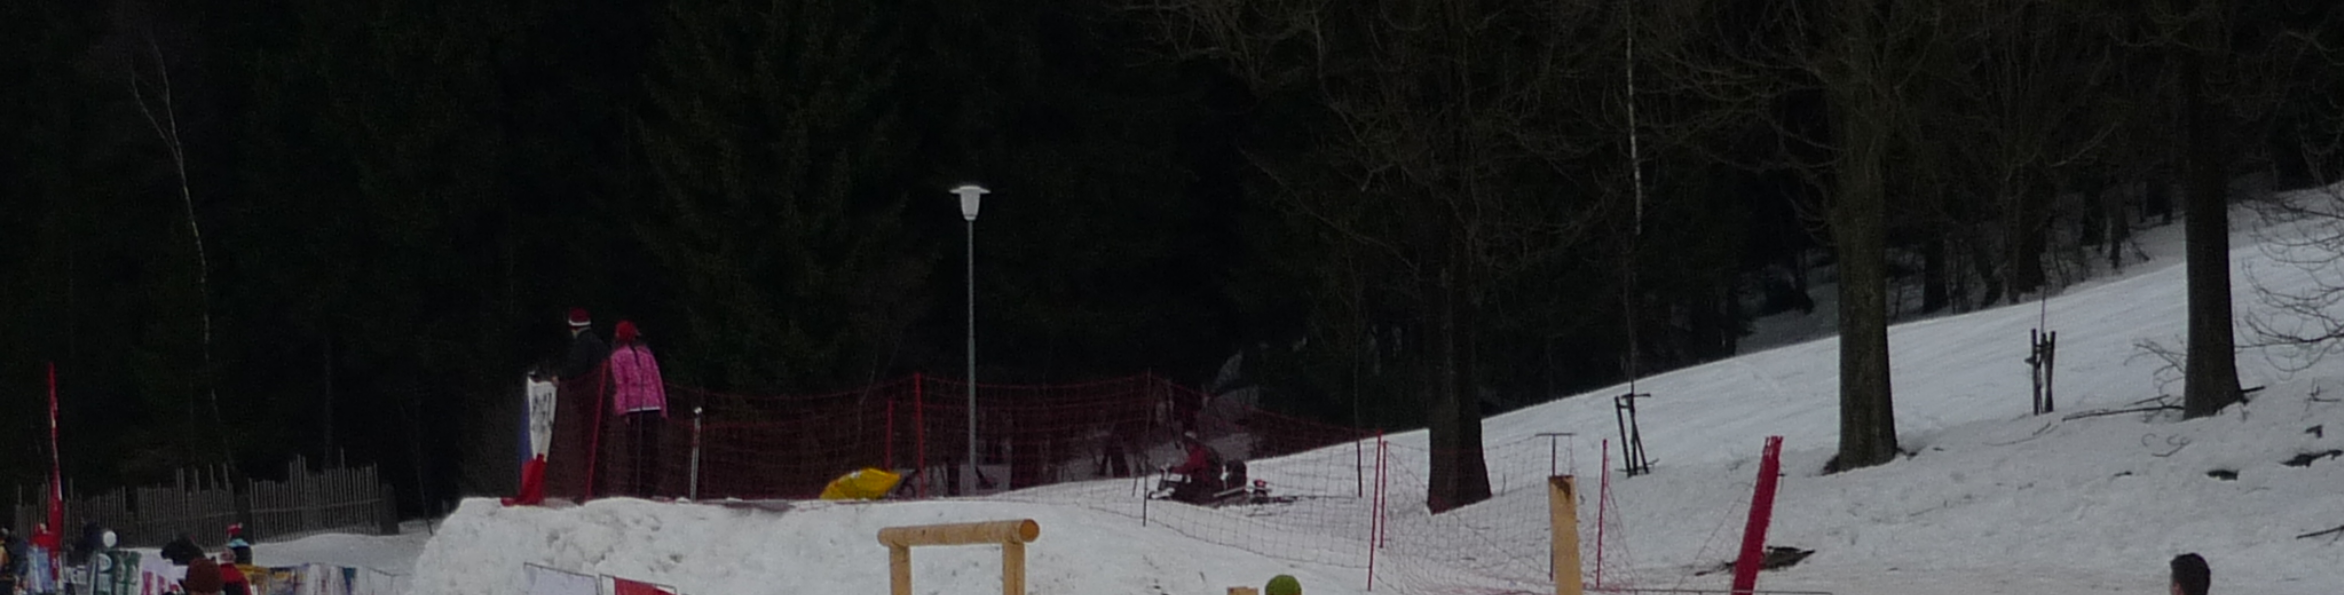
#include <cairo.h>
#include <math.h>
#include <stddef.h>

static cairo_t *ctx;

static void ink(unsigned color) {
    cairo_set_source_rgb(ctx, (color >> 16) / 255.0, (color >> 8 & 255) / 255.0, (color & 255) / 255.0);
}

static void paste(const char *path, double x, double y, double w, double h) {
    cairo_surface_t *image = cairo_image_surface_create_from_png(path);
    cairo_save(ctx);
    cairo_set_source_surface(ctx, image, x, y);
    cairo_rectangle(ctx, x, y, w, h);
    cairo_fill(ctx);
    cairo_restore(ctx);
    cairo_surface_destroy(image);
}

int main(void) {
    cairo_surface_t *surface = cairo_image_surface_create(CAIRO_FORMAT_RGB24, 2344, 595);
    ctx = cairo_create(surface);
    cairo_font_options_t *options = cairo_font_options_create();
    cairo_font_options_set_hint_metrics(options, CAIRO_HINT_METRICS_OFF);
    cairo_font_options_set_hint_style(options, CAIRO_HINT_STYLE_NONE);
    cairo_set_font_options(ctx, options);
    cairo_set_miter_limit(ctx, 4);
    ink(0xffffff);
    cairo_paint(ctx);
    paste("pic1.png", 0, 0, 2344, 595);
    cairo_surface_write_to_png(surface, "screenshot.png");
    cairo_font_options_destroy(options);
    cairo_destroy(ctx);
    cairo_surface_destroy(surface);
    return 0;
}
